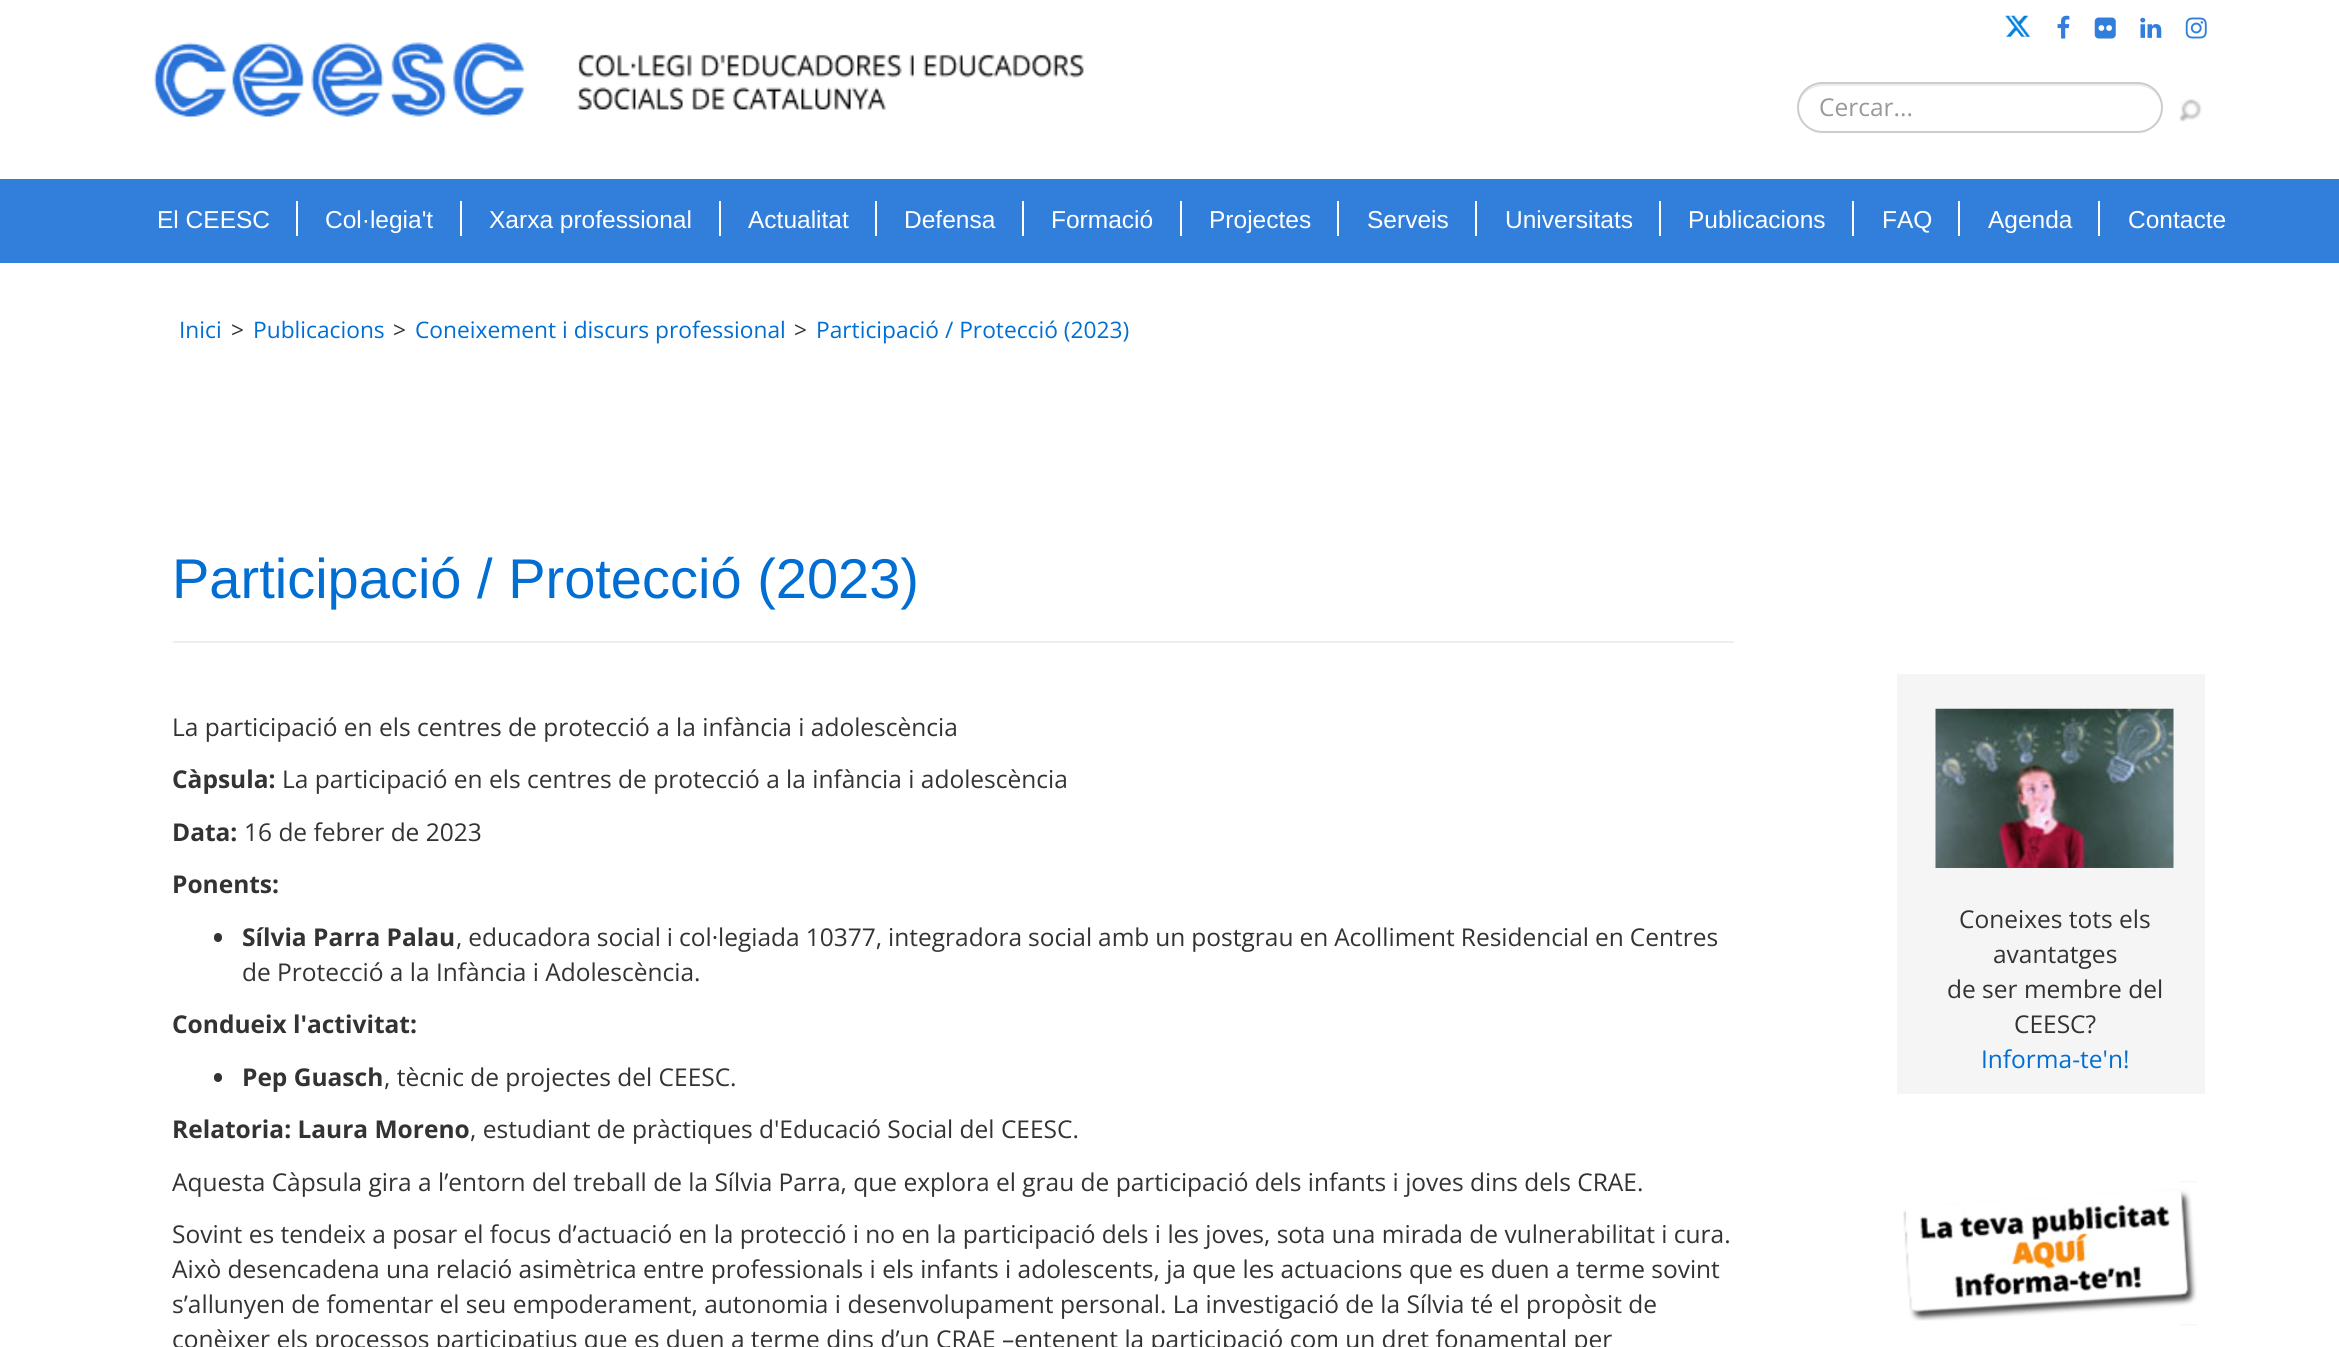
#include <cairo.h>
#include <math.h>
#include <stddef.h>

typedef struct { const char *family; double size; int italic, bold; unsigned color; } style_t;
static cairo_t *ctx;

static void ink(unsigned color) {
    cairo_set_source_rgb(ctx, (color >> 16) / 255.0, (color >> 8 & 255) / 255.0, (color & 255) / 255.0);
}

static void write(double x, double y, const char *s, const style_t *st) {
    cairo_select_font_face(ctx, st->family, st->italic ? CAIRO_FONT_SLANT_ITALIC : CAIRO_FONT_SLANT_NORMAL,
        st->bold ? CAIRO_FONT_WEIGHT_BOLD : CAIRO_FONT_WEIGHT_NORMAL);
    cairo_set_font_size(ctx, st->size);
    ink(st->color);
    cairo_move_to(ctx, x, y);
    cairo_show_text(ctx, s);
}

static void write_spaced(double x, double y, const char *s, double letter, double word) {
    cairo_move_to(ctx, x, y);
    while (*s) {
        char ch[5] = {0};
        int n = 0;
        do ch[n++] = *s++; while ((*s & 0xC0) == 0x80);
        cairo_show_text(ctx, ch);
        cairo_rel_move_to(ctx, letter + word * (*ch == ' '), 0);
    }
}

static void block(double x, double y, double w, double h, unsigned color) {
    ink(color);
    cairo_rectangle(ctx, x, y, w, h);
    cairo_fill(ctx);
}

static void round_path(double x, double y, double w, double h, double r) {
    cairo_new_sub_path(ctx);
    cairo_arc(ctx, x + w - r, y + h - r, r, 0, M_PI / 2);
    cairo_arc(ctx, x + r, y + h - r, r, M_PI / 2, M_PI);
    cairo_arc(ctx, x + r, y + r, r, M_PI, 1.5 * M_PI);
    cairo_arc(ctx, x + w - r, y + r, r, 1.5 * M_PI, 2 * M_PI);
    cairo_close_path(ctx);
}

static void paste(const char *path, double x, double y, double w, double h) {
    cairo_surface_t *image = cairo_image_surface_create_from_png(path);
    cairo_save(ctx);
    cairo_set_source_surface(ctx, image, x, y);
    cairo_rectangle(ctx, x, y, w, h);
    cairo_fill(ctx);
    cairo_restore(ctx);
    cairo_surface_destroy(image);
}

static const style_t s1 = {"Open Sans", 24.5, 0, 0, 0x999999};
static const style_t s2 = {"Liberation Sans", 24.5, 0, 0, 0xffffff};
static const style_t s3 = {"Open Sans", 22.75, 0, 0, 0x016ed3};
static const style_t s4 = {"Open Sans", 22.75, 0, 0, 0x333333};
static const style_t s5 = {"Liberation Sans", 56, 0, 0, 0x016ed3};
static const style_t s6 = {"Open Sans", 24.5, 0, 0, 0x333333};
static const style_t s7 = {"Open Sans", 24.5, 0, 1, 0x333333};
static const style_t s8 = {"Open Sans", 24.5, 0, 0, 0x016ed3};

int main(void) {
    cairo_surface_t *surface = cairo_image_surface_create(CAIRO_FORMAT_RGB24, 2339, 1347);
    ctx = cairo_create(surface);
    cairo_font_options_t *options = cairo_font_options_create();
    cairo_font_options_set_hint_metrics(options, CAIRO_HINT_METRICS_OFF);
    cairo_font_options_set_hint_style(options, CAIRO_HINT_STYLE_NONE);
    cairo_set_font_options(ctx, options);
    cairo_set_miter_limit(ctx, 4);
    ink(0xffffff);
    cairo_paint(ctx);
    paste("pic1.png", 153, 42, 931, 77);
    paste("pic2.png", 2005, 15, 25, 22);
    paste("pic3.png", 2057, 15, 13, 24);
    paste("pic4.png", 2094, 17, 22, 22);
    paste("pic5.png", 2140, 17, 22, 21);
    paste("pic6.png", 2185, 17, 22, 22);
    ink(0xececec);
    cairo_new_path(ctx);
    cairo_move_to(ctx, 1823, 86);
    cairo_line_to(ctx, 2138, 86);
    cairo_curve_to(ctx, 2151, 86, 2161, 96, 2161, 108);
    cairo_curve_to(ctx, 2161, 95, 2151, 84, 2138, 84);
    cairo_line_to(ctx, 1822, 84);
    cairo_curve_to(ctx, 1809, 84, 1799, 95, 1799, 108);
    cairo_curve_to(ctx, 1799, 96, 1810, 86, 1823, 86);
    cairo_close_path(ctx);
    cairo_fill(ctx);
    round_path(1798, 83, 364, 49, 24.5);
    ink(0xcccccc);
    cairo_stroke(ctx);
    write(1819, 116, "Cercar...", &s1);
    paste("pic7.png", 2179, 99, 23, 23);
    block(0, 179, 2339, 84, 0x327fdb);
    block(296, 201, 2, 35, 0xffffff);
    write(157, 228, "El CEESC", &s2);
    block(460, 201, 2, 35, 0xffffff);
    write(325, 228, "Col·legia't", &s2);
    block(719, 201, 2, 35, 0xffffff);
    write(489, 228, "Xarxa professional", &s2);
    block(875, 201, 2, 35, 0xffffff);
    write(748, 228, "Actualitat", &s2);
    block(1022, 201, 2, 35, 0xffffff);
    write(904, 228, "Defensa", &s2);
    block(1180, 201, 2, 35, 0xffffff);
    write(1051, 228, "Formació", &s2);
    block(1337, 201, 2, 35, 0xffffff);
    write(1209, 228, "Projectes", &s2);
    block(1475, 201, 2, 35, 0xffffff);
    write(1367, 228, "Serveis", &s2);
    block(1659, 201, 2, 35, 0xffffff);
    write(1505, 228, "Universitats", &s2);
    block(1852, 201, 2, 35, 0xffffff);
    write(1688, 228, "Publicacions", &s2);
    block(1958, 201, 2, 35, 0xffffff);
    write(1882, 228, "FAQ", &s2);
    block(2098, 201, 2, 35, 0xffffff);
    write(1988, 228, "Agenda", &s2);
    write(2128, 228, "Contacte", &s2);
    write(179, 338, "Inici", &s3);
    write(231, 338, ">", &s4);
    write(253, 338, "Publicacions", &s3);
    write(393, 338, ">", &s4);
    write(415, 338, "Coneixement i discurs professional", &s3);
    write(794, 338, ">", &s4);
    write(816, 338, "Participació / Protecció (2023)", &s3);
    block(173, 641, 1561, 2, 0xeeeeee);
    write(172, 598, "Participació / Protecció (2023)", &s5);
    write(172, 736, "La participació en els centres de protecció a la infància i adolescència", &s6);
    write(172, 788, "Càpsula:", &s7);
    write(282, 788, "La participació en els centres de protecció a la infància i adolescència", &s6);
    write(172, 841, "Data:", &s7);
    write(244, 841, "16 de febrer de 2023", &s6);
    write(172, 893, "Ponents:", &s7);
    round_path(214, 933, 8, 9, 4);
    cairo_fill(ctx);
    write(242, 946, "Sílvia Parra Palau", &s7);
    cairo_select_font_face(ctx, "Open Sans", CAIRO_FONT_SLANT_NORMAL, CAIRO_FONT_WEIGHT_NORMAL);
    write_spaced(456, 946, ", educadora social i col·legiada 10377, integradora social amb un postgrau en Acolliment Residencial en Centres", 0, -0.4);
    write(242, 981, "de Protecció a la Infància i Adolescència.", &s6);
    write(172, 1033, "Condueix l'activitat:", &s7);
    round_path(214, 1073, 8, 9, 4);
    cairo_fill(ctx);
    write(242, 1086, "Pep Guasch", &s7);
    write(384, 1086, ", tècnic de projectes del CEESC.", &s6);
    write(172, 1138, "Relatoria: Laura Moreno", &s7);
    write(470, 1138, ", estudiant de pràctiques d'Educació Social del CEESC.", &s6);
    write(172, 1191, "Aquesta Càpsula gira a l’entorn del treball de la Sílvia Parra, que explora el grau de participació dels infants i joves dins dels CRAE.", &s6);
    write(172, 1243, "Sovint es tendeix a posar el focus d’actuació en la protecció i no en la participació dels i les joves, sota una mirada de vulnerabilitat i cura.", &s6);
    write(172, 1278, "Això desencadena una relació asimètrica entre professionals i els infants i adolescents, ja que les actuacions que es duen a terme sovint", &s6);
    write(172, 1313, "s’allunyen de fomentar el seu empoderament, autonomia i desenvolupament personal. La investigació de la Sílvia té el propòsit de", &s6);
    write(172, 1348, "conèixer els processos participatius que es duen a terme dins d’un CRAE –entenent la participació com un dret fonamental per", &s6);
    block(1897, 674, 308, 420, 0xf5f5f5);
    paste("pic8.png", 1935, 708, 239, 160);
    write(1959, 928, "Coneixes tots els", &s6);
    write(1993, 963, "avantatges", &s6);
    write(1947, 998, "de ser membre del", &s6);
    write(2014, 1033, "CEESC?", &s6);
    write(1981, 1068, "Informa-te'n!", &s8);
    paste("pic9.png", 1903, 1181, 294, 145);
    cairo_surface_write_to_png(surface, "screenshot.png");
    cairo_font_options_destroy(options);
    cairo_destroy(ctx);
    cairo_surface_destroy(surface);
    return 0;
}
